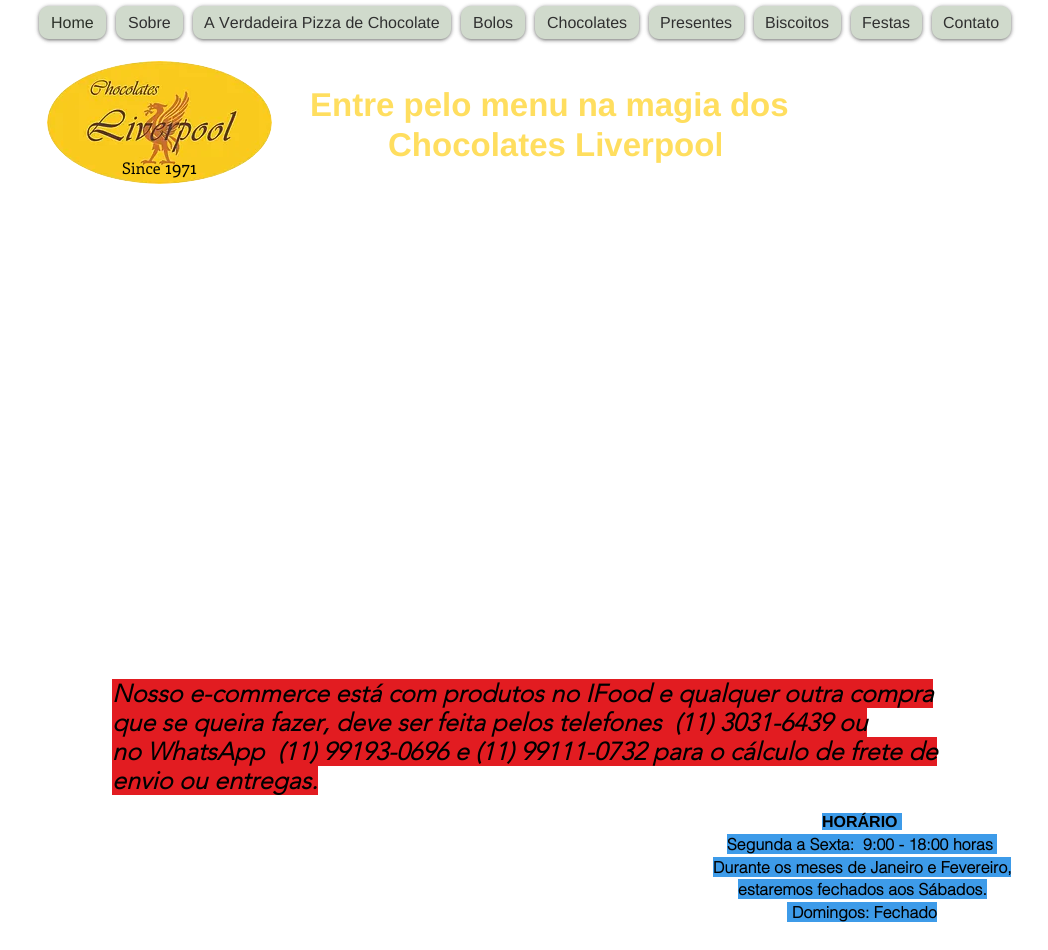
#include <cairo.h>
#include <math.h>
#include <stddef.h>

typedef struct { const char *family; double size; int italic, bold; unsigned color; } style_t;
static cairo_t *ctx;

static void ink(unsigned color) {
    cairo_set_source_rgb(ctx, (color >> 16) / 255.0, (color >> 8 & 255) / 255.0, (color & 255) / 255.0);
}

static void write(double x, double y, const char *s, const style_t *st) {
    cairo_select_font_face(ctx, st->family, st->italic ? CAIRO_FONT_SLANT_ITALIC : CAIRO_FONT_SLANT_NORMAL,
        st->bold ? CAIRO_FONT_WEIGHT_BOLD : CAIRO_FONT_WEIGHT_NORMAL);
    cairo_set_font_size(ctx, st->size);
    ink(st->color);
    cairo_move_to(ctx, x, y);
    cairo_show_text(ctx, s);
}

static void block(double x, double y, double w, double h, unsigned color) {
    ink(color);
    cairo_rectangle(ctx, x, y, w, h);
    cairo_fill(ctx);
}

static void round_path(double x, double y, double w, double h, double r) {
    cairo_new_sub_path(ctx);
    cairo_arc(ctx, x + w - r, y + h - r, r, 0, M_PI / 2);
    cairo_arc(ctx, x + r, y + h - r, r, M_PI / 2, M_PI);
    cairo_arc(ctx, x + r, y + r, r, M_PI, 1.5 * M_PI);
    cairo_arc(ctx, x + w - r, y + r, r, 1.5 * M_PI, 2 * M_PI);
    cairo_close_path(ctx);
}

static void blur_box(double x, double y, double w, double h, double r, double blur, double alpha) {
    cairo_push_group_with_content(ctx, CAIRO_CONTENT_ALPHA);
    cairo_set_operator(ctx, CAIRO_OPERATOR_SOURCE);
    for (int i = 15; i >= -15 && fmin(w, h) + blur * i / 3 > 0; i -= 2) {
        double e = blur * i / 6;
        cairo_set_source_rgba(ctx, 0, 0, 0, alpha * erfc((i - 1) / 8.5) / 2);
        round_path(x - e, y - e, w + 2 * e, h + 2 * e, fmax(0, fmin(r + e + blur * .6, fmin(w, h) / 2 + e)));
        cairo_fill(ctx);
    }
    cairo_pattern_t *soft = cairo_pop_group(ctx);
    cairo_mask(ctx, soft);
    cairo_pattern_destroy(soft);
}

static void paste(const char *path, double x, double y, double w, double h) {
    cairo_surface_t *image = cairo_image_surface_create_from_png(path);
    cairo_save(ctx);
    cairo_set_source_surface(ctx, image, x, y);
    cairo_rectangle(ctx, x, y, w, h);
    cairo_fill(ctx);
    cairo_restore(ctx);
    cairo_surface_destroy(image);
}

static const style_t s1 = {"Liberation Sans", 16, 0, 0, 0x2a3027};
static const style_t s2 = {"Liberation Sans", 16, 0, 0, 0x303030};
static const style_t s3 = {"Liberation Sans", 33, 0, 1, 0xffde5f};
static const style_t s4 = {"Enriqueta", 16, 0, 0, 0x000000};
static const style_t s5 = {"Enriqueta", 18, 0, 0, 0x000000};
static const style_t s6 = {"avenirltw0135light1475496", 25, 1, 1, 0x000000};
static const style_t s7 = {"Liberation Sans", 16, 0, 1, 0x000000};
static const style_t s8 = {"helvetica", 16, 0, 1, 0x000000};

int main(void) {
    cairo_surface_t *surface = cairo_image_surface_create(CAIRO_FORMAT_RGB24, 1048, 950);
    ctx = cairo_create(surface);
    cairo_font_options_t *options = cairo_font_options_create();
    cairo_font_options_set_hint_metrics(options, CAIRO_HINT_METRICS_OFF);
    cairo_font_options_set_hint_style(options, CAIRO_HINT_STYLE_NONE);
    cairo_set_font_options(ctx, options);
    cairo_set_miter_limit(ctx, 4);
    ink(0xffffff);
    cairo_paint(ctx);
    ink(0x000000);
    blur_box(39, 7, 67, 33, 10, 2, 0.6);
    ink(0xd0dacc);
    round_path(39, 6, 67, 33, 10);
    cairo_fill(ctx);
    write(51, 28, "Home", &s1);
    ink(0x000000);
    blur_box(116, 7, 67, 33, 10, 2, 0.6);
    ink(0xd0dacc);
    round_path(116, 6, 67, 33, 10);
    cairo_fill(ctx);
    write(128, 28, "Sobre", &s2);
    ink(0x000000);
    blur_box(193, 7, 258, 33, 10, 2, 0.6);
    ink(0xd0dacc);
    round_path(193, 6, 258, 33, 10);
    cairo_fill(ctx);
    write(204, 28, "A Verdadeira Pizza de Chocolate", &s2);
    ink(0x000000);
    blur_box(461, 7, 64, 33, 10, 2, 0.6);
    ink(0xd0dacc);
    round_path(461, 6, 64, 33, 10);
    cairo_fill(ctx);
    write(473, 28, "Bolos", &s2);
    ink(0x000000);
    blur_box(535, 7, 104, 33, 10, 2, 0.6);
    ink(0xd0dacc);
    round_path(535, 6, 104, 33, 10);
    cairo_fill(ctx);
    write(547, 28, "Chocolates", &s2);
    ink(0x000000);
    blur_box(649, 7, 95, 33, 10, 2, 0.6);
    ink(0xd0dacc);
    round_path(649, 6, 95, 33, 10);
    cairo_fill(ctx);
    write(660, 28, "Presentes", &s2);
    ink(0x000000);
    blur_box(754, 7, 87, 33, 10, 2, 0.6);
    ink(0xd0dacc);
    round_path(754, 6, 87, 33, 10);
    cairo_fill(ctx);
    write(765, 28, "Biscoitos", &s2);
    ink(0x000000);
    blur_box(851, 7, 71, 33, 10, 2, 0.6);
    ink(0xd0dacc);
    round_path(851, 6, 71, 33, 10);
    cairo_fill(ctx);
    write(862, 28, "Festas", &s2);
    ink(0x000000);
    blur_box(932, 7, 79, 33, 10, 2, 0.6);
    ink(0xd0dacc);
    round_path(932, 6, 79, 33, 10);
    cairo_fill(ctx);
    write(943, 28, "Contato", &s2);
    paste("pic1.png", 47, 61, 225, 123);
    write(310, 116, "Entre pelo menu na magia dos", &s3);
    write(388, 156, "Chocolates Liverpool", &s3);
    write(122, 174, "Since", &s4);
    write(165, 174, "1971", &s5);
    block(112, 679, 821, 29, 0xe21c21);
    write(112, 702, "Nosso e-commerce está com produtos no IFood e qualquer outra compra", &s6);
    block(112, 708, 755, 29, 0xe21c21);
    write(112, 731, "que se queira fazer, deve ser feita pelos telefones  (11) 3031-6439 ou", &s6);
    block(112, 737, 825, 29, 0xe21c21);
    write(112, 760, "no WhatsApp  (11) 99193-0696 e (11) 99111-0732 para o cálculo de frete de", &s6);
    block(112, 766, 206, 29, 0xe21c21);
    write(112, 789, "envio ou entregas.", &s6);
    block(822, 813, 80, 17, 0x3d9be9);
    write(822, 827, "HORÁRIO", &s7);
    block(727, 834, 270, 20, 0x3d9be9);
    write(727, 850, "Segunda a Sexta:  9:00 - 18:00 horas", &s8);
    block(713, 857, 298, 20, 0x3d9be9);
    write(713, 873, "Durante os meses de Janeiro e Fevereiro,", &s8);
    block(738, 879, 249, 20, 0x3d9be9);
    write(738, 895, "estaremos fechados aos Sábados.", &s8);
    block(787, 902, 150, 20, 0x3d9be9);
    write(792, 918, "Domingos: Fechado", &s8);
    cairo_surface_write_to_png(surface, "screenshot.png");
    cairo_font_options_destroy(options);
    cairo_destroy(ctx);
    cairo_surface_destroy(surface);
    return 0;
}
